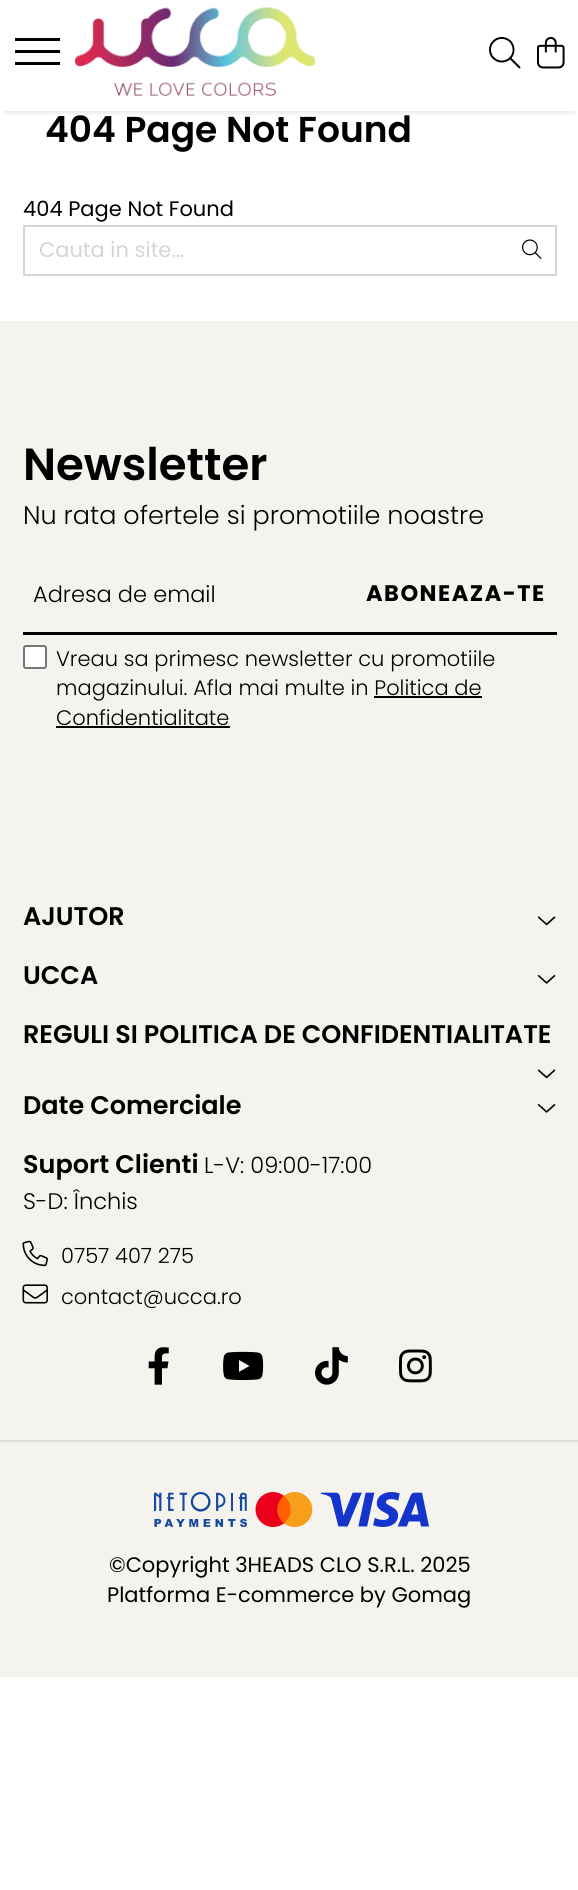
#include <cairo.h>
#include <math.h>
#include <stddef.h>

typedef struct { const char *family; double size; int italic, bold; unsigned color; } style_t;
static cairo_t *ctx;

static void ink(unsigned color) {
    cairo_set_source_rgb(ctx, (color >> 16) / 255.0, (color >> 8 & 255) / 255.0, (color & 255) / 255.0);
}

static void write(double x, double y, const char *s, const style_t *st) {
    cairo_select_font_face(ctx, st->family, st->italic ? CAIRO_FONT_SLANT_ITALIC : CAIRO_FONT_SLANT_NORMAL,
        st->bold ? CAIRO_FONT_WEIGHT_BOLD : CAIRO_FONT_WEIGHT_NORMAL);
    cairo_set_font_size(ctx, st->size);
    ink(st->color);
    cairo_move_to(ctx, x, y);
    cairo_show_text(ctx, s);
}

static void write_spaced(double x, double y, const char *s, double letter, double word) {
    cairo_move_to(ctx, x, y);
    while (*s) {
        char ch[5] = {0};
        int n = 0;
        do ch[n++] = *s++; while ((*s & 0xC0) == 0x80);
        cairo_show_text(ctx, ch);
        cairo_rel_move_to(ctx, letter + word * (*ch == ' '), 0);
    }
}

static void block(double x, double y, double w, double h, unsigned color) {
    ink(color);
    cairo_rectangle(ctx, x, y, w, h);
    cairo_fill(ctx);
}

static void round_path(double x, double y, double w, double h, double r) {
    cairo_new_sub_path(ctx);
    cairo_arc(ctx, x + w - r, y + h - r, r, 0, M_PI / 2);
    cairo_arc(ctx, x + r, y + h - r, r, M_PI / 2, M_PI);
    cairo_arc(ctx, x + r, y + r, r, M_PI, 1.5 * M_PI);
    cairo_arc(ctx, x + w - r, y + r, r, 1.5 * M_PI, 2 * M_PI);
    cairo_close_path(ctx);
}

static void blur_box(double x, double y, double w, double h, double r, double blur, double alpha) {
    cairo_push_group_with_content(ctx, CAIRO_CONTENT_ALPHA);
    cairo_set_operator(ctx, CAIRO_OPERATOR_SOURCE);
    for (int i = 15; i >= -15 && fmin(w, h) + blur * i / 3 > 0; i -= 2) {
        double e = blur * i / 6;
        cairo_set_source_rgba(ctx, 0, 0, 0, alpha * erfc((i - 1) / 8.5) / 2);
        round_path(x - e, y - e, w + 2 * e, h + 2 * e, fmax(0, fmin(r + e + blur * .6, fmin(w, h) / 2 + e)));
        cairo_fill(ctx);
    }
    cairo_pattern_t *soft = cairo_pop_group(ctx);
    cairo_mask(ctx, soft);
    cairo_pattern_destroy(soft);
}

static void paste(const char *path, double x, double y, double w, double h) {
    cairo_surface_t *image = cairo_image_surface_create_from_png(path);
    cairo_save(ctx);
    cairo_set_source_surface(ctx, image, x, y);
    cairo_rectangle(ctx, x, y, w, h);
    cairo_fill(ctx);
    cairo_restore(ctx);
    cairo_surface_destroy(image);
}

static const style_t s1 = {"Poppins SemiBold", 36, 0, 0, 0x000000};
static const style_t s2 = {"Poppins", 21, 0, 0, 0x000000};
static const style_t s3 = {"Poppins", 21, 0, 0, 0xd5d5d5};
static const style_t s4 = {"Poppins SemiBold", 45, 0, 0, 0x000000};
static const style_t s5 = {"Poppins Light", 25.5, 0, 0, 0x000000};
static const style_t s6 = {"Poppins Light", 22.5, 0, 0, 0x000000};
static const style_t s7 = {"Poppins Light", 21, 0, 0, 0x000000};
static const style_t s8 = {"Poppins SemiBold", 25.5, 0, 0, 0x000000};

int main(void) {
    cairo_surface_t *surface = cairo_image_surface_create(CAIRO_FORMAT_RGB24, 578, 1890);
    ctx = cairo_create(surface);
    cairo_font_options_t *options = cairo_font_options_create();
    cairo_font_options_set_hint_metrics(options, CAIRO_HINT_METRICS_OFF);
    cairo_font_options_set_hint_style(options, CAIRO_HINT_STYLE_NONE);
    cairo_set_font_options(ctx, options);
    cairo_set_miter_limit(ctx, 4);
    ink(0xffffff);
    cairo_paint(ctx);
    cairo_save(ctx);
    cairo_rectangle(ctx, 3, 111, 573, 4);
    cairo_clip(ctx);
    ink(0x000000);
    blur_box(6, 9, 567, 99, 0, 5, 0.3);
    cairo_restore(ctx);
    block(15, 50, 45, 3, 0x000000);
    block(15, 38, 45, 3, 0x000000);
    block(15, 62, 45, 3, 0x000000);
    paste("pic1.png", 75, 7, 240, 89);
    paste("pic2.png", 489, 36, 32, 33);
    paste("pic3.png", 537, 36, 28, 33);
    write(45, 142, "404 Page Not Found", &s1);
    write(23, 216, "404 Page Not Found", &s2);
    cairo_rectangle(ctx, 24, 226, 532, 49);
    ink(0xd5d5d5);
    cairo_stroke(ctx);
    write(39, 257, "Cauta in site...", &s3);
    paste("pic4.png", 522, 239, 20, 20);
    block(0, 321, 578, 1356, 0xf5f3ee);
    write(23, 480, "Newsletter", &s4);
    write(23, 524, "Nu rata ofertele si promotiile noastre", &s5);
    block(23, 632, 534, 3, 0x000000);
    write(33, 602, "Adresa de email", &s6);
    cairo_select_font_face(ctx, "Poppins", CAIRO_FONT_SLANT_NORMAL, CAIRO_FONT_WEIGHT_BOLD);
    write_spaced(366, 601, "ABONEAZA-TE", 1.5, 0);
    ink(0xffffff);
    round_path(24, 646, 22, 22, 2);
    cairo_fill_preserve(ctx);
    ink(0x767676);
    cairo_stroke(ctx);
    write(56, 666, "Vreau sa primesc newsletter cu promotiile", &s7);
    write(56, 695, "magazinului. Afla mai multe in Politica de", &s7);
    write(56, 725, "Confidentialitate", &s7);
    block(374, 696, 108, 2, 0x000000);
    block(56, 726, 174, 2, 0x000000);
    write(23, 925, "AJUTOR", &s8);
    paste("pic5.png", 537, 916, 19, 10);
    write(23, 984, "UCCA", &s8);
    paste("pic6.png", 537, 975, 19, 9);
    write(23, 1043, "REGULI SI POLITICA DE CONFIDENTIALITATE", &s8);
    paste("pic5.png", 537, 1069, 19, 10);
    write(23, 1114, "Date Comerciale", &s8);
    paste("pic6.png", 537, 1104, 19, 9);
    write(23, 1173, "Suport Clienti", &s8);
    write(204, 1173, "L-V: 09:00-17:00", &s6);
    write(23, 1209, "S-D: Închis", &s6);
    paste("pic7.png", 22, 1240, 26, 27);
    write(61, 1263, "0757 407 275", &s7);
    paste("pic8.png", 22, 1284, 26, 20);
    write(61, 1304, "contact@ucca.ro", &s7);
    paste("pic9.png", 148, 1347, 21, 38);
    paste("pic10.png", 223, 1351, 41, 29);
    paste("pic11.png", 315, 1347, 33, 38);
    paste("pic12.png", 399, 1349, 33, 34);
    block(0, 1440, 578, 2, 0xdddddd);
    paste("pic13.png", 154, 1492, 275, 35);
    write(109, 1572, "©Copyright 3HEADS CLO S.R.L. 2025", &s2);
    write(107, 1602, "Platforma E-commerce by Gomag", &s2);
    cairo_surface_write_to_png(surface, "screenshot.png");
    cairo_font_options_destroy(options);
    cairo_destroy(ctx);
    cairo_surface_destroy(surface);
    return 0;
}
